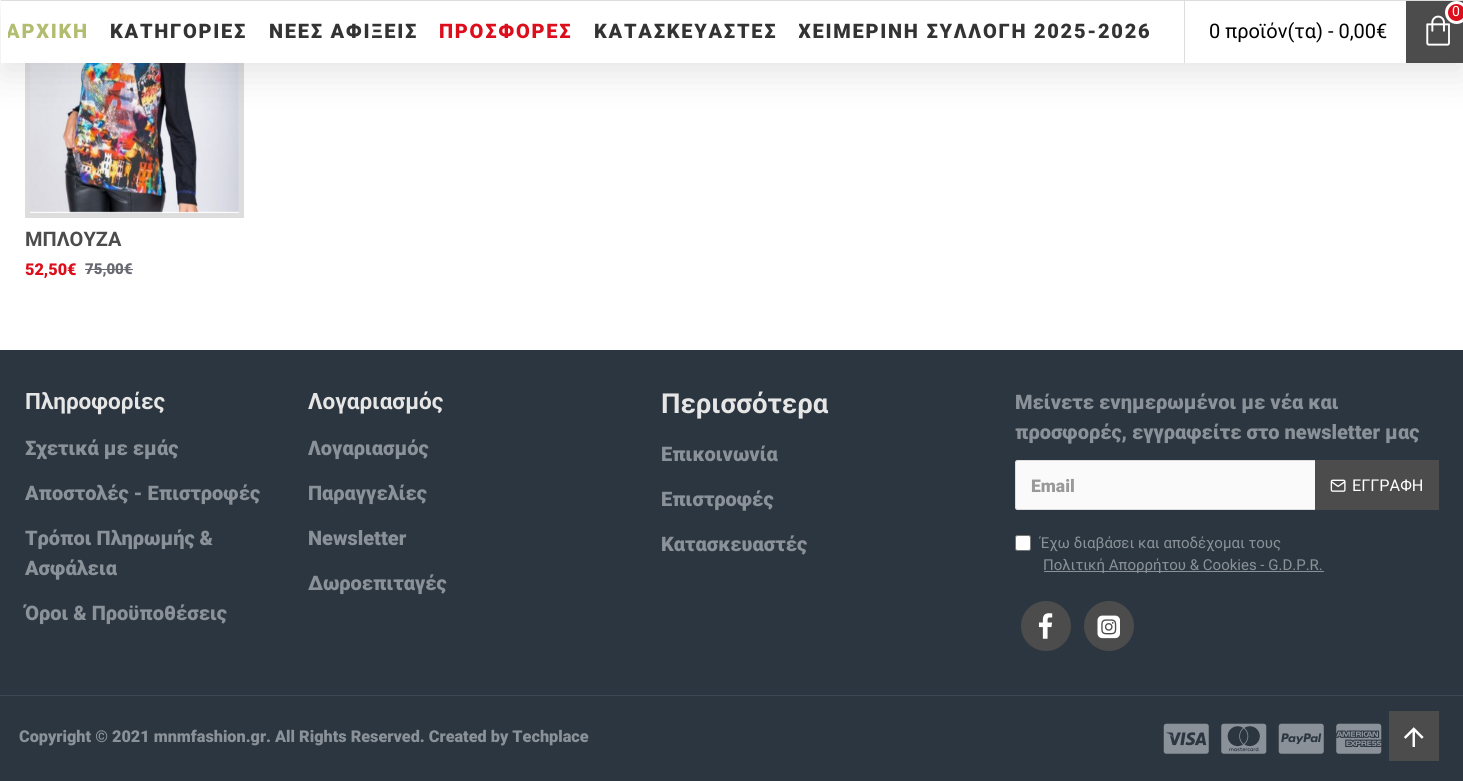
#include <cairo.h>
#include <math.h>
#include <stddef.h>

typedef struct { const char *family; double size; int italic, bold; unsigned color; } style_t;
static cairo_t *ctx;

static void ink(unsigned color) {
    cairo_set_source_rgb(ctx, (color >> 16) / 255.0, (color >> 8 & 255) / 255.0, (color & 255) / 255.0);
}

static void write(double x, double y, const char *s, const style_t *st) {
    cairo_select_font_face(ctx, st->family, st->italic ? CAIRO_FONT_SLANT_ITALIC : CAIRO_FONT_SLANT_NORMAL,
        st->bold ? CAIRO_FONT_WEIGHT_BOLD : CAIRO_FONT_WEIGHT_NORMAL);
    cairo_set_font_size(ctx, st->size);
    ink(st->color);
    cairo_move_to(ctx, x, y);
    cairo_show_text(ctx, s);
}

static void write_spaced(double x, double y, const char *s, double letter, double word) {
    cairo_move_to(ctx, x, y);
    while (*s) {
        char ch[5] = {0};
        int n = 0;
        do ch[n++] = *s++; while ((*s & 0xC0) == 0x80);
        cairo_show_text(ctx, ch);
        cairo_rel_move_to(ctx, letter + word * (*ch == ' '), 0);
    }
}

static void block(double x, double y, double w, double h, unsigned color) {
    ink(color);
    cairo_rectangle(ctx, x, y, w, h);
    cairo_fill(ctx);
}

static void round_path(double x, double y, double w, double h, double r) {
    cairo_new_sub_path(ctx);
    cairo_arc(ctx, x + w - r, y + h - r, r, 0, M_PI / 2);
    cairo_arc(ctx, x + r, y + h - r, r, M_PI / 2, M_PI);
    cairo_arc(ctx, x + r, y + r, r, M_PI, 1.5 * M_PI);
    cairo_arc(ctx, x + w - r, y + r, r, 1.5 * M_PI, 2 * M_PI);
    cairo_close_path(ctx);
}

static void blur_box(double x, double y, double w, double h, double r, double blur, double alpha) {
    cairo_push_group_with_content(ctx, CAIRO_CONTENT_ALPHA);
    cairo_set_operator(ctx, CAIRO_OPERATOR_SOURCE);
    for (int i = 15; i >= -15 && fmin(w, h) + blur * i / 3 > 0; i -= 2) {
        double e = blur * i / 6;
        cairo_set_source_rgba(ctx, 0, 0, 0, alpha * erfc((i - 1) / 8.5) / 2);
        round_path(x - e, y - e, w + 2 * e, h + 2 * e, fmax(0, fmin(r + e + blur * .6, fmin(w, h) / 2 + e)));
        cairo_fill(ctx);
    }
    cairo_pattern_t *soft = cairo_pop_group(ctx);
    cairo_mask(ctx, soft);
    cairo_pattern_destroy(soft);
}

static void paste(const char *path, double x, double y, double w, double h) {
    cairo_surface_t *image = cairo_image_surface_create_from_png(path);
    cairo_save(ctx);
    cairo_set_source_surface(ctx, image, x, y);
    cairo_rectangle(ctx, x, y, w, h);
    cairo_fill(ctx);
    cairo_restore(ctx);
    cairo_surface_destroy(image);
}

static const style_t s1 = {"Roboto", 14, 0, 0, 0xffffff};
static const style_t s2 = {"Roboto", 20, 0, 0, 0x000000};
static const style_t s3 = {"Roboto", 20, 0, 1, 0x4c4c4c};
static const style_t s4 = {"Roboto Black", 16.25, 0, 0, 0xdd0e1c};
static const style_t s5 = {"Roboto Black", 15, 0, 0, 0x696973};
static const style_t s6 = {"Roboto", 22.5, 0, 1, 0xe6e6e6};
static const style_t s7 = {"Roboto Black", 20, 0, 0, 0x8b9198};
static const style_t s8 = {"Roboto", 27.5, 0, 1, 0xe6e6e6};
static const style_t s9 = {"Roboto Black", 17.5, 0, 0, 0x999999};
static const style_t s10 = {"Roboto", 16.25, 0, 0, 0xffffff};
static const style_t s11 = {"Roboto", 15, 0, 0, 0x8b9198};
static const style_t s12 = {"Roboto Black", 16.25, 0, 0, 0x8b9198};

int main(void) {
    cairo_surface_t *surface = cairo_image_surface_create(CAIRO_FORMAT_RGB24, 1463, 781);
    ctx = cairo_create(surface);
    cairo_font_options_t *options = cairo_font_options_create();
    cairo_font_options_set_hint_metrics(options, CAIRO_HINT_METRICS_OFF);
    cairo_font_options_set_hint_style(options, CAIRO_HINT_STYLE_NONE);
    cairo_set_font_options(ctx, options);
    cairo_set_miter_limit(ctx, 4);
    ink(0xffffff);
    cairo_paint(ctx);
    cairo_rectangle(ctx, 27.5, -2.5, 214, 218);
    ink(0xdddddd);
    cairo_set_line_width(ctx, 5);
    cairo_stroke(ctx);
    paste("pic2.png", 30, 63, 209, 150);
    ink(0x000000);
    blur_box(1, 13, 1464, 62, 0, 19, 0.1);
    block(1, 1, 1405, 62, 0xffffff);
    block(1, 0, 1462, 1, 0xdddddd);
    cairo_save(ctx);
    cairo_rectangle(ctx, 8, 16, 82, 30);
    cairo_clip(ctx);
    cairo_select_font_face(ctx, "Roboto Black", CAIRO_FONT_SLANT_NORMAL, CAIRO_FONT_WEIGHT_NORMAL);
    cairo_set_font_size(ctx, 20);
    ink(0xb2bd70);
    write_spaced(6, 38, "ΑΡΧΙΚΗ", 1.75, 0);
    cairo_restore(ctx);
    cairo_select_font_face(ctx, "Roboto Black", CAIRO_FONT_SLANT_NORMAL, CAIRO_FONT_WEIGHT_NORMAL);
    cairo_set_font_size(ctx, 20);
    ink(0x333333);
    write_spaced(110, 38, "ΚΑΤΗΓΟΡΙΕΣ", 1.75, 0);
    write_spaced(269, 38, "ΝΕΕΣ ΑΦΙΞΕΙΣ", 1.75, 0);
    ink(0xdd0e1c);
    write_spaced(439, 38, "ΠΡΟΣΦΟΡΕΣ", 1.75, 0);
    ink(0x333333);
    write_spaced(594, 38, "ΚΑΤΑΣΚΕΥΑΣΤΕΣ", 1.75, 0);
    cairo_save(ctx);
    cairo_rectangle(ctx, 799, 16, 354, 30);
    cairo_clip(ctx);
    write_spaced(798, 38, "ΧΕΙΜΕΡΙΝΗ ΣΥΛΛΟΓΗ 2025-2026", 1.75, 0);
    cairo_restore(ctx);
    block(1184, 0, 1, 63, 0xdddddd);
    block(1406, 1, 57, 62, 0x4c4c4c);
    paste("pic1.png", 1426, 15, 24, 31);
    ink(0xdd0e1c);
    cairo_arc(ctx, 1456.5, 12.5, 10, 0, 2 * M_PI);
    cairo_fill_preserve(ctx);
    ink(0xffffff);
    cairo_set_line_width(ctx, 3);
    cairo_stroke(ctx);
    write(1452, 16, "0", &s1);
    write(1209, 38, "0 προϊόν(τα) - 0,00€", &s2);
    write(25, 246, "ΜΠΛΟΥΖΑ", &s3);
    write(25, 275, "52,50€", &s4);
    write(85, 274, "75,00€", &s5);
    block(85, 269, 48, 1, 0x696973);
    block(0, 350, 1463, 431, 0x2c3640);
    write(25, 409, "Πληροφορίες", &s6);
    write(25, 455, "Σχετικά με εμάς", &s7);
    write(25, 500, "Αποστολές - Επιστροφές", &s7);
    write(25, 545, "Τρόποι Πληρωμής &", &s7);
    write(25, 575, "Ασφάλεια", &s7);
    write(25, 620, "Όροι & Προϋποθέσεις", &s7);
    write(308, 409, "Λογαριασμός", &s6);
    write(308, 455, "Λογαριασμός", &s7);
    write(308, 500, "Παραγγελίες", &s7);
    write(308, 545, "Newsletter", &s7);
    write(308, 590, "Δωροεπιταγές", &s7);
    write(661, 413, "Περισσότερα", &s8);
    write(661, 461, "Επικοινωνία", &s7);
    write(661, 506, "Επιστροφές", &s7);
    write(661, 551, "Κατασκευαστές", &s7);
    write(1015, 409, "Μείνετε ενημερωμένοι με νέα και", &s7);
    write(1015, 439, "προσφορές, εγγραφείτε στο newsletter μας", &s7);
    ink(0xfafafa);
    round_path(1015.5, 460.5, 423, 49, 2);
    cairo_fill_preserve(ctx);
    ink(0xdddddd);
    cairo_set_line_width(ctx, 1);
    cairo_stroke(ctx);
    write(1031, 492, "Email", &s9);
    block(1315, 460, 124, 50, 0x4c4c4c);
    paste("pic3.png", 1330, 479, 16, 13);
    write(1352, 491, "ΕΓΓΡΑΦΗ", &s10);
    round_path(1015.5, 535.5, 15, 15, 2);
    cairo_fill_preserve(ctx);
    ink(0x767676);
    cairo_stroke(ctx);
    write(1040, 548, "Έχω διαβάσει και αποδέχομαι τους", &s11);
    block(1044, 571, 280, 1, 0x8b9198);
    write(1043, 570, "Πολιτική Απορρήτου & Cookies - G.D.P.R.", &s11);
    ink(0x4c4c4c);
    cairo_new_path(ctx);
    cairo_arc(ctx, 1046, 626, 25, 0, 2 * M_PI);
    cairo_fill(ctx);
    paste("pic4.png", 1038, 613, 15, 26);
    cairo_arc(ctx, 1109, 626, 25, 0, 2 * M_PI);
    cairo_fill(ctx);
    paste("pic5.png", 1097, 615, 23, 24);
    block(0, 695, 1463, 1, 0x3a4754);
    write(19, 742, "Copyright © 2021 mnmfashion.gr. All Rights Reserved. Created by Techplace", &s12);
    paste("pic6.png", 1163, 723, 46, 31);
    paste("pic7.png", 1221, 723, 46, 31);
    paste("pic8.png", 1278, 723, 46, 31);
    paste("pic9.png", 1336, 723, 46, 31);
    block(1389, 711, 50, 50, 0x4c4c4c);
    paste("pic10.png", 1404, 727, 20, 20);
    cairo_surface_write_to_png(surface, "screenshot.png");
    cairo_font_options_destroy(options);
    cairo_destroy(ctx);
    cairo_surface_destroy(surface);
    return 0;
}
